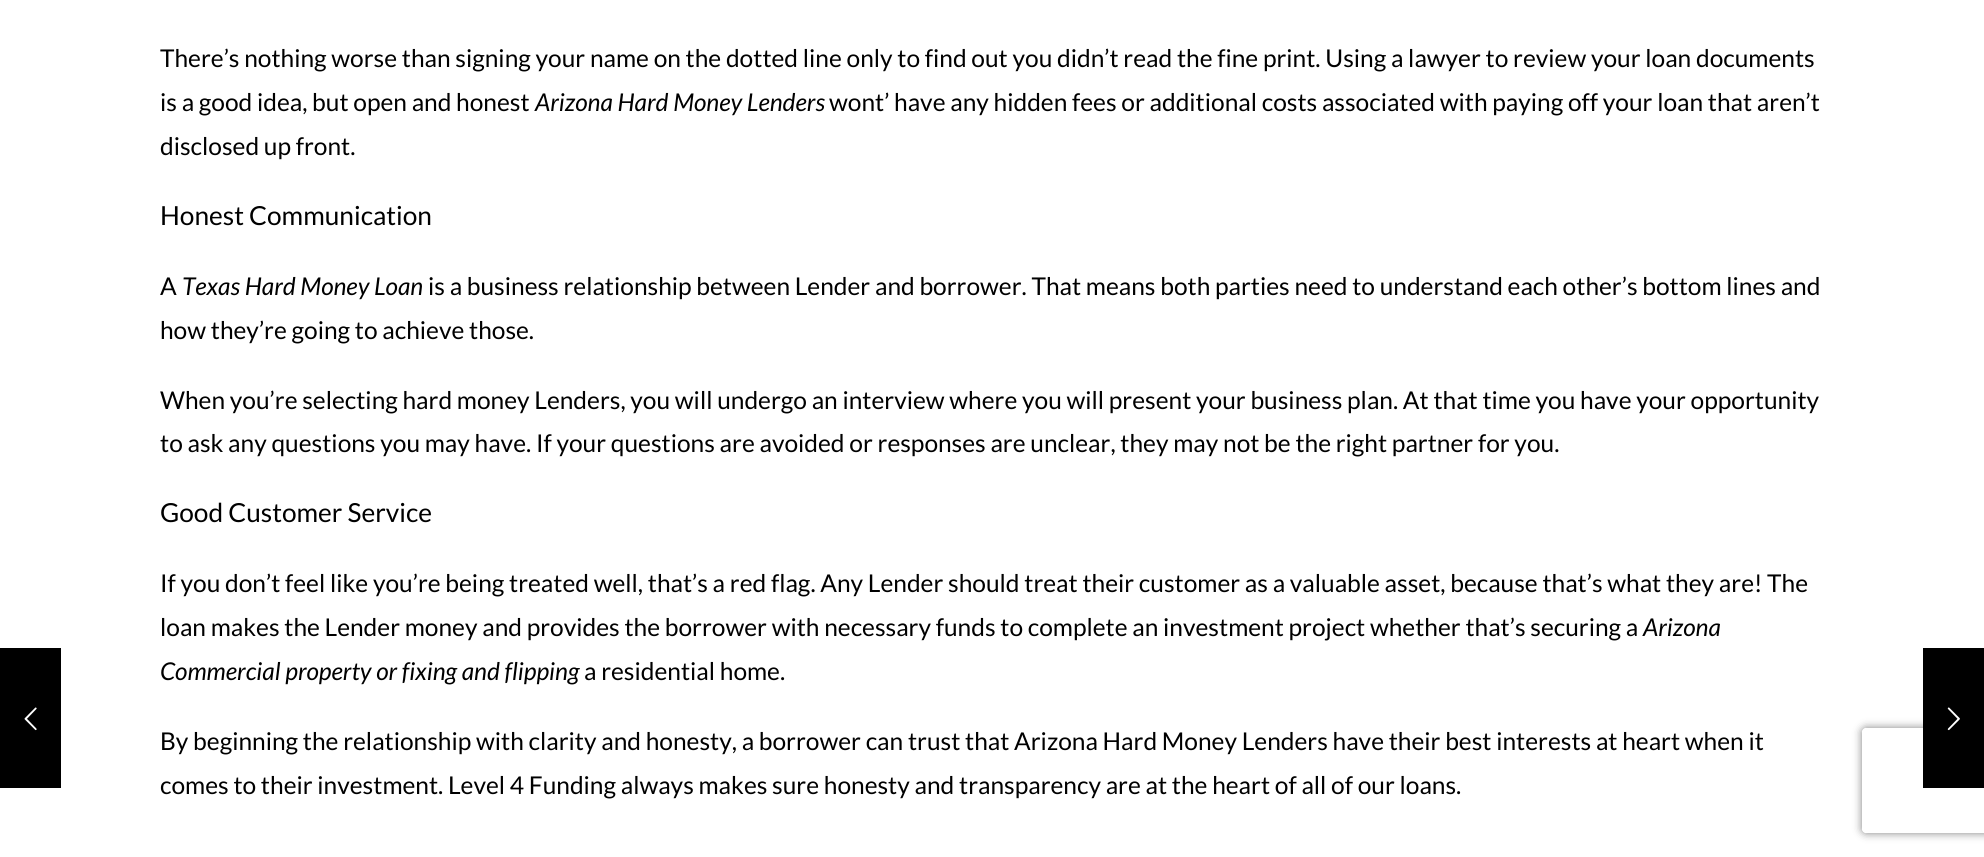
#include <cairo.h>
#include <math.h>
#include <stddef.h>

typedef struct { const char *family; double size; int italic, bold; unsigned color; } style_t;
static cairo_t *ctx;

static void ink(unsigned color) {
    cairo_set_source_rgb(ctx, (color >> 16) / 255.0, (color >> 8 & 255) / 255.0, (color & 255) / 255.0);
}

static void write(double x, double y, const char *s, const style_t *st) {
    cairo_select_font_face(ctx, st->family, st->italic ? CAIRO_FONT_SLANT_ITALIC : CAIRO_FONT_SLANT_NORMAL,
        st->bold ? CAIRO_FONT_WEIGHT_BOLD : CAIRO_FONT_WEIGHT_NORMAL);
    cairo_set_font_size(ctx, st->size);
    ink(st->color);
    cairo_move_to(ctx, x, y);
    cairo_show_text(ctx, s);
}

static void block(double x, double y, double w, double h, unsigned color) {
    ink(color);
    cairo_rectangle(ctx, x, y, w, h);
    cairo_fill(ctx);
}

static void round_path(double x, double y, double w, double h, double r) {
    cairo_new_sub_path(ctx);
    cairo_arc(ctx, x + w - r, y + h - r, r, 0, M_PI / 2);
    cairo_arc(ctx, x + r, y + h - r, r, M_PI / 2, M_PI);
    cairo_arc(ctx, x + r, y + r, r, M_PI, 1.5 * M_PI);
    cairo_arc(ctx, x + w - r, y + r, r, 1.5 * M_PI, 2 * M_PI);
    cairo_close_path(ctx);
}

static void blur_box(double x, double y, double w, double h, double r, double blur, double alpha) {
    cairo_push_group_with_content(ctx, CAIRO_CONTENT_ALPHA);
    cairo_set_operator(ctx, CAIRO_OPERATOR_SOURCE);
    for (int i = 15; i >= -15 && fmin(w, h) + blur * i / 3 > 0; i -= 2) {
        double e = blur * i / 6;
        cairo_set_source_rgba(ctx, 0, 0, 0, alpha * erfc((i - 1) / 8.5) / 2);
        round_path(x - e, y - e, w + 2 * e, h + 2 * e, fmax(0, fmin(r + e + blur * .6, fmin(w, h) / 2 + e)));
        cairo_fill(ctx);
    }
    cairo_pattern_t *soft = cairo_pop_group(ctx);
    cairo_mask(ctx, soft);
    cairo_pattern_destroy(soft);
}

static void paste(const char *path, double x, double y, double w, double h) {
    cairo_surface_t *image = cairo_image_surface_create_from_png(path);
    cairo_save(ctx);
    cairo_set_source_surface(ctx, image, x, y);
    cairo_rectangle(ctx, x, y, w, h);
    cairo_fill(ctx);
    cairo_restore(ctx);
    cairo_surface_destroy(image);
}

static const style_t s1 = {"Lato", 24.5, 0, 0, 0x000000};
static const style_t s2 = {"Lato", 24.5, 1, 0, 0x000000};
static const style_t s3 = {"Lato", 26.25, 0, 0, 0x000000};

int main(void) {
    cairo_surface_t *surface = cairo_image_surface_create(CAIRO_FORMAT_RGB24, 1984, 857);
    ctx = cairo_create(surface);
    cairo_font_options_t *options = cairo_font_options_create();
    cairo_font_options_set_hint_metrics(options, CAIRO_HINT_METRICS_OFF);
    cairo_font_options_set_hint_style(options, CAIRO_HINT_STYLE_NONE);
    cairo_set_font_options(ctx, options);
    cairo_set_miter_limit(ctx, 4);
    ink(0xffffff);
    cairo_paint(ctx);
    block(0, 648, 61, 140, 0x000000);
    paste("pic1.png", 24, 707, 13, 24);
    write(160, 67, "There’s nothing worse than signing your name on the dotted line only to find out you didn’t read the fine print. Using a lawyer to review your loan documents", &s1);
    write(160, 111, "is a good idea, but open and honest", &s1);
    write(535, 111, "Arizona Hard Money Lenders", &s2);
    write(829, 111, "wont’ have any hidden fees or additional costs associated with paying off your loan that aren’t", &s1);
    write(160, 155, "disclosed up front.", &s1);
    write(160, 225, "Honest Communication", &s3);
    write(160, 295, "A", &s1);
    write(182, 295, "Texas Hard Money Loan", &s2);
    write(428, 295, "is a business relationship between Lender and borrower. That means both parties need to understand each other’s bottom lines and", &s1);
    write(160, 339, "how they’re going to achieve those.", &s1);
    write(160, 409, "When you’re selecting hard money Lenders, you will undergo an interview where you will present your business plan. At that time you have your opportunity", &s1);
    write(160, 452, "to ask any questions you may have. If your questions are avoided or responses are unclear, they may not be the right partner for you.", &s1);
    write(160, 522, "Good Customer Service", &s3);
    write(160, 592, "If you don’t feel like you’re being treated well, that’s a red flag. Any Lender should treat their customer as a valuable asset, because that’s what they are! The", &s1);
    write(160, 636, "loan makes the Lender money and provides the borrower with necessary funds to complete an investment project whether that’s securing a", &s1);
    write(1643, 636, "Arizona", &s2);
    write(160, 680, "Commercial property or fixing and flipping", &s2);
    write(584, 680, "a residential home.", &s1);
    write(160, 750, "By beginning the relationship with clarity and honesty, a borrower can trust that Arizona Hard Money Lenders have their best interests at heart when it", &s1);
    write(160, 794, "comes to their investment. Level 4 Funding always makes sure honesty and transparency are at the heart of all of our loans.", &s1);
    cairo_save(ctx);
    cairo_set_fill_rule(ctx, CAIRO_FILL_RULE_EVEN_ODD);
    cairo_new_path(ctx);
    cairo_move_to(ctx, 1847, 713);
    cairo_line_to(ctx, 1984, 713);
    cairo_line_to(ctx, 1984, 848);
    cairo_line_to(ctx, 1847, 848);
    cairo_close_path(ctx);
    cairo_move_to(ctx, 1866, 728);
    cairo_line_to(ctx, 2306, 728);
    cairo_curve_to(ctx, 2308, 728, 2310, 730, 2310, 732);
    cairo_line_to(ctx, 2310, 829);
    cairo_curve_to(ctx, 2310, 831, 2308, 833, 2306, 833);
    cairo_line_to(ctx, 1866, 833);
    cairo_curve_to(ctx, 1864, 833, 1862, 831, 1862, 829);
    cairo_line_to(ctx, 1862, 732);
    cairo_curve_to(ctx, 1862, 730, 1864, 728, 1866, 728);
    cairo_close_path(ctx);
    cairo_clip(ctx);
    ink(0x808080);
    blur_box(1862, 728, 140, 105, 4, 4.5, 1);
    cairo_restore(ctx);
    block(1923, 648, 61, 140, 0x000000);
    paste("pic2.png", 1947, 707, 13, 24);
    cairo_surface_write_to_png(surface, "screenshot.png");
    cairo_font_options_destroy(options);
    cairo_destroy(ctx);
    cairo_surface_destroy(surface);
    return 0;
}
